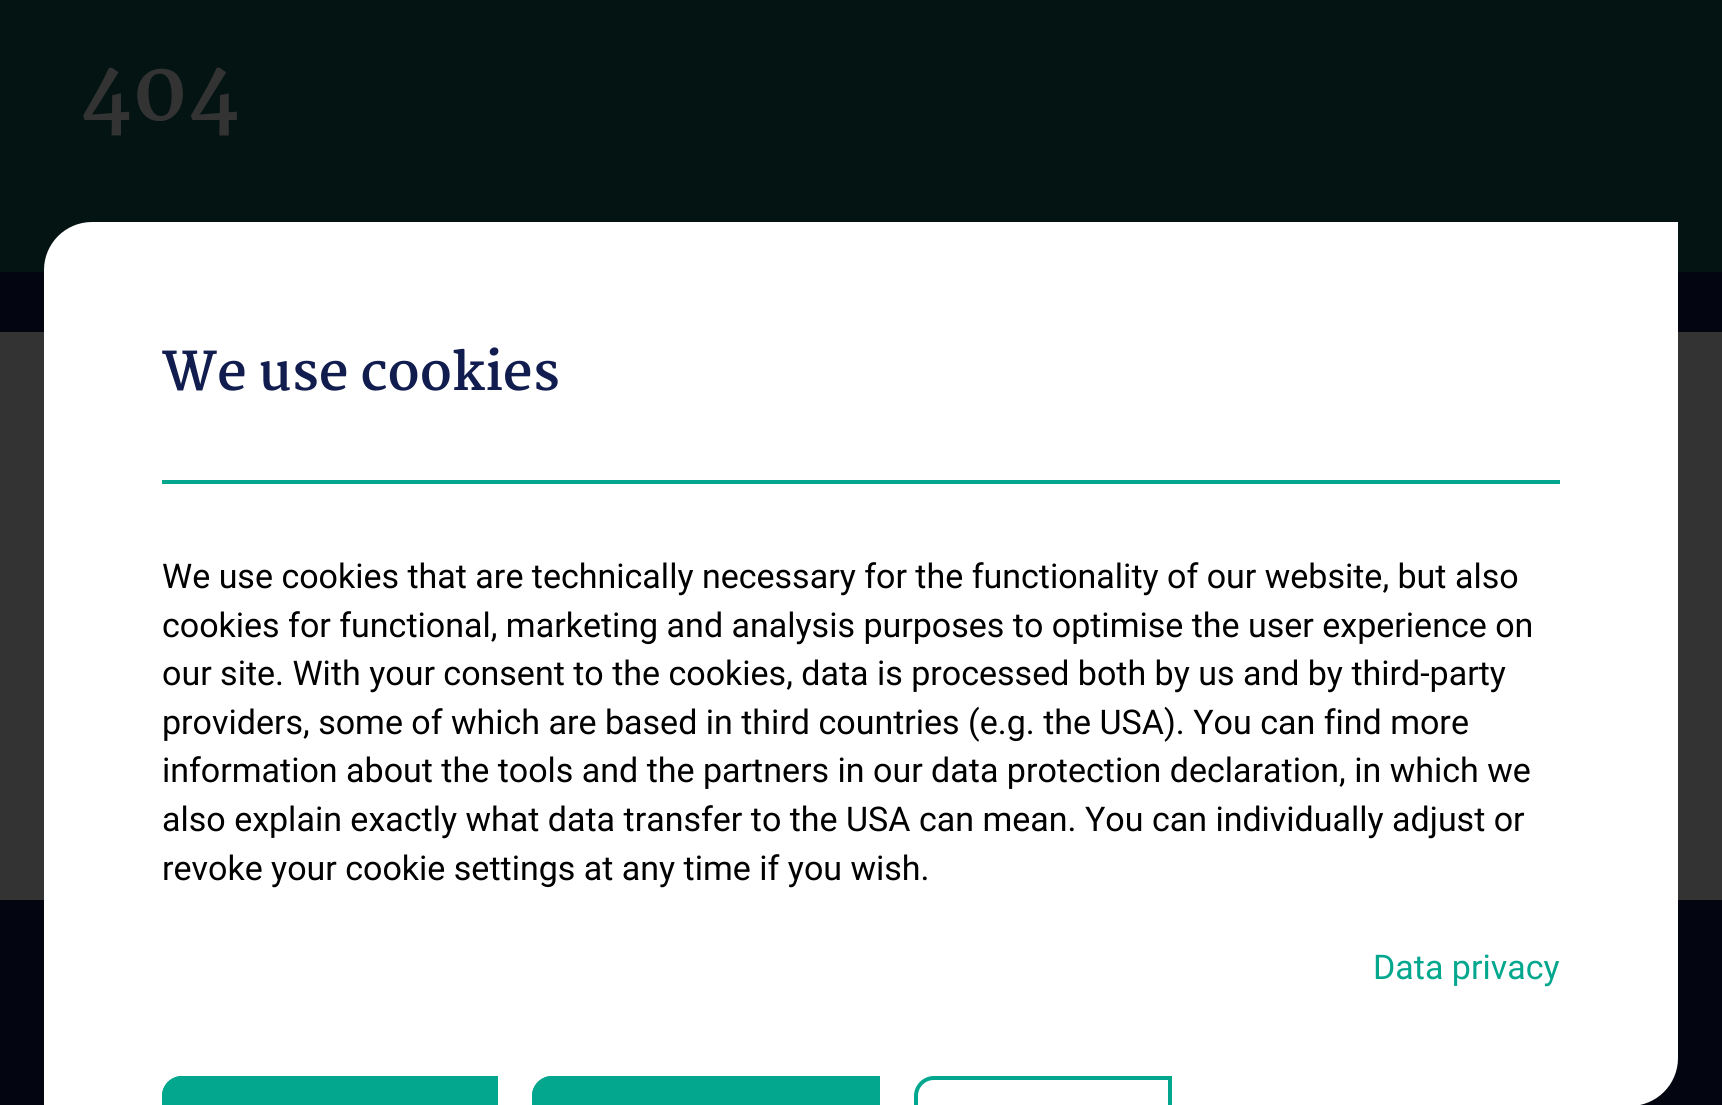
#include <cairo.h>
#include <math.h>
#include <stddef.h>

typedef struct { const char *family; double size; int italic, bold; unsigned color; } style_t;
static cairo_t *ctx;

static void ink(unsigned color) {
    cairo_set_source_rgb(ctx, (color >> 16) / 255.0, (color >> 8 & 255) / 255.0, (color & 255) / 255.0);
}

static void write(double x, double y, const char *s, const style_t *st) {
    cairo_select_font_face(ctx, st->family, st->italic ? CAIRO_FONT_SLANT_ITALIC : CAIRO_FONT_SLANT_NORMAL,
        st->bold ? CAIRO_FONT_WEIGHT_BOLD : CAIRO_FONT_WEIGHT_NORMAL);
    cairo_set_font_size(ctx, st->size);
    ink(st->color);
    cairo_move_to(ctx, x, y);
    cairo_show_text(ctx, s);
}

static void block(double x, double y, double w, double h, unsigned color) {
    ink(color);
    cairo_rectangle(ctx, x, y, w, h);
    cairo_fill(ctx);
}

static const style_t s1 = {"Martel", 84, 0, 1, 0x333333};
static const style_t s2 = {"Martel", 52, 0, 1, 0x111d4e};
static const style_t s3 = {"Roboto", 34, 0, 0, 0x000000};
static const style_t s4 = {"Roboto", 34, 0, 0, 0x03a78e};

int main(void) {
    cairo_surface_t *surface = cairo_image_surface_create(CAIRO_FORMAT_RGB24, 1722, 1105);
    ctx = cairo_create(surface);
    cairo_font_options_t *options = cairo_font_options_create();
    cairo_font_options_set_hint_metrics(options, CAIRO_HINT_METRICS_OFF);
    cairo_font_options_set_hint_style(options, CAIRO_HINT_STYLE_NONE);
    cairo_set_font_options(ctx, options);
    cairo_set_miter_limit(ctx, 4);
    ink(0x333333);
    cairo_paint(ctx);
    block(0, 0, 1722, 272, 0x041412);
    write(80, 120, "404", &s1);
    block(0, 272, 1722, 60, 0x030610);
    block(0, 900, 1722, 205, 0x030610);
    ink(0xffffff);
    cairo_new_path(ctx);
    cairo_move_to(ctx, 92, 222);
    cairo_line_to(ctx, 1678, 222);
    cairo_line_to(ctx, 1678, 1058);
    cairo_curve_to(ctx, 1678, 1084.5, 1656.5, 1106, 1630, 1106);
    cairo_line_to(ctx, 44, 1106);
    cairo_line_to(ctx, 44, 270);
    cairo_curve_to(ctx, 44, 243.5, 65.5, 222, 92, 222);
    cairo_close_path(ctx);
    cairo_fill(ctx);
    block(162, 480, 1398, 4, 0x03a78e);
    write(162, 390, "We use cookies", &s2);
    write(162, 588, "We use cookies that are technically necessary for the functionality of our website, but also", &s3);
    write(162, 637, "cookies for functional, marketing and analysis purposes to optimise the user experience on", &s3);
    write(162, 685, "our site. With your consent to the cookies, data is processed both by us and by third-party", &s3);
    write(162, 734, "providers, some of which are based in third countries (e.g. the USA). You can find more", &s3);
    write(162, 782, "information about the tools and the partners in our data protection declaration, in which we", &s3);
    write(162, 831, "also explain exactly what data transfer to the USA can mean. You can individually adjust or", &s3);
    write(162, 880, "revoke your cookie settings at any time if you wish.", &s3);
    write(1373, 979, "Data privacy", &s4);
    cairo_new_path(ctx);
    cairo_move_to(ctx, 182, 1076);
    cairo_line_to(ctx, 498, 1076);
    cairo_line_to(ctx, 498, 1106);
    cairo_line_to(ctx, 162, 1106);
    cairo_line_to(ctx, 162, 1096);
    cairo_curve_to(ctx, 162, 1085, 171, 1076, 182, 1076);
    cairo_close_path(ctx);
    cairo_fill(ctx);
    cairo_new_path(ctx);
    cairo_move_to(ctx, 182, 1076);
    cairo_curve_to(ctx, 171, 1076, 162, 1085, 162, 1096);
    cairo_line_to(ctx, 162, 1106);
    cairo_line_to(ctx, 166, 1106);
    cairo_line_to(ctx, 166, 1096);
    cairo_curve_to(ctx, 166, 1087, 173, 1080, 182, 1080);
    cairo_line_to(ctx, 494, 1080);
    cairo_line_to(ctx, 494, 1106);
    cairo_line_to(ctx, 498, 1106);
    cairo_line_to(ctx, 498, 1076);
    cairo_close_path(ctx);
    cairo_fill(ctx);
    cairo_new_path(ctx);
    cairo_move_to(ctx, 552, 1076);
    cairo_line_to(ctx, 880, 1076);
    cairo_line_to(ctx, 880, 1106);
    cairo_line_to(ctx, 532, 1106);
    cairo_line_to(ctx, 532, 1096);
    cairo_curve_to(ctx, 532, 1085, 541, 1076, 552, 1076);
    cairo_close_path(ctx);
    cairo_fill(ctx);
    cairo_new_path(ctx);
    cairo_move_to(ctx, 552, 1076);
    cairo_curve_to(ctx, 541, 1076, 532, 1085, 532, 1096);
    cairo_line_to(ctx, 532, 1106);
    cairo_line_to(ctx, 536, 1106);
    cairo_line_to(ctx, 536, 1096);
    cairo_curve_to(ctx, 536, 1087, 543, 1080, 552, 1080);
    cairo_line_to(ctx, 876, 1080);
    cairo_line_to(ctx, 876, 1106);
    cairo_line_to(ctx, 880, 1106);
    cairo_line_to(ctx, 880, 1076);
    cairo_close_path(ctx);
    cairo_fill(ctx);
    cairo_new_path(ctx);
    cairo_move_to(ctx, 934, 1076);
    cairo_curve_to(ctx, 923, 1076, 914, 1085, 914, 1096);
    cairo_line_to(ctx, 914, 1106);
    cairo_line_to(ctx, 918, 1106);
    cairo_line_to(ctx, 918, 1096);
    cairo_curve_to(ctx, 918, 1087, 925, 1080, 934, 1080);
    cairo_line_to(ctx, 1168, 1080);
    cairo_line_to(ctx, 1168, 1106);
    cairo_line_to(ctx, 1172, 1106);
    cairo_line_to(ctx, 1172, 1076);
    cairo_close_path(ctx);
    cairo_fill(ctx);
    cairo_surface_write_to_png(surface, "screenshot.png");
    cairo_font_options_destroy(options);
    cairo_destroy(ctx);
    cairo_surface_destroy(surface);
    return 0;
}
